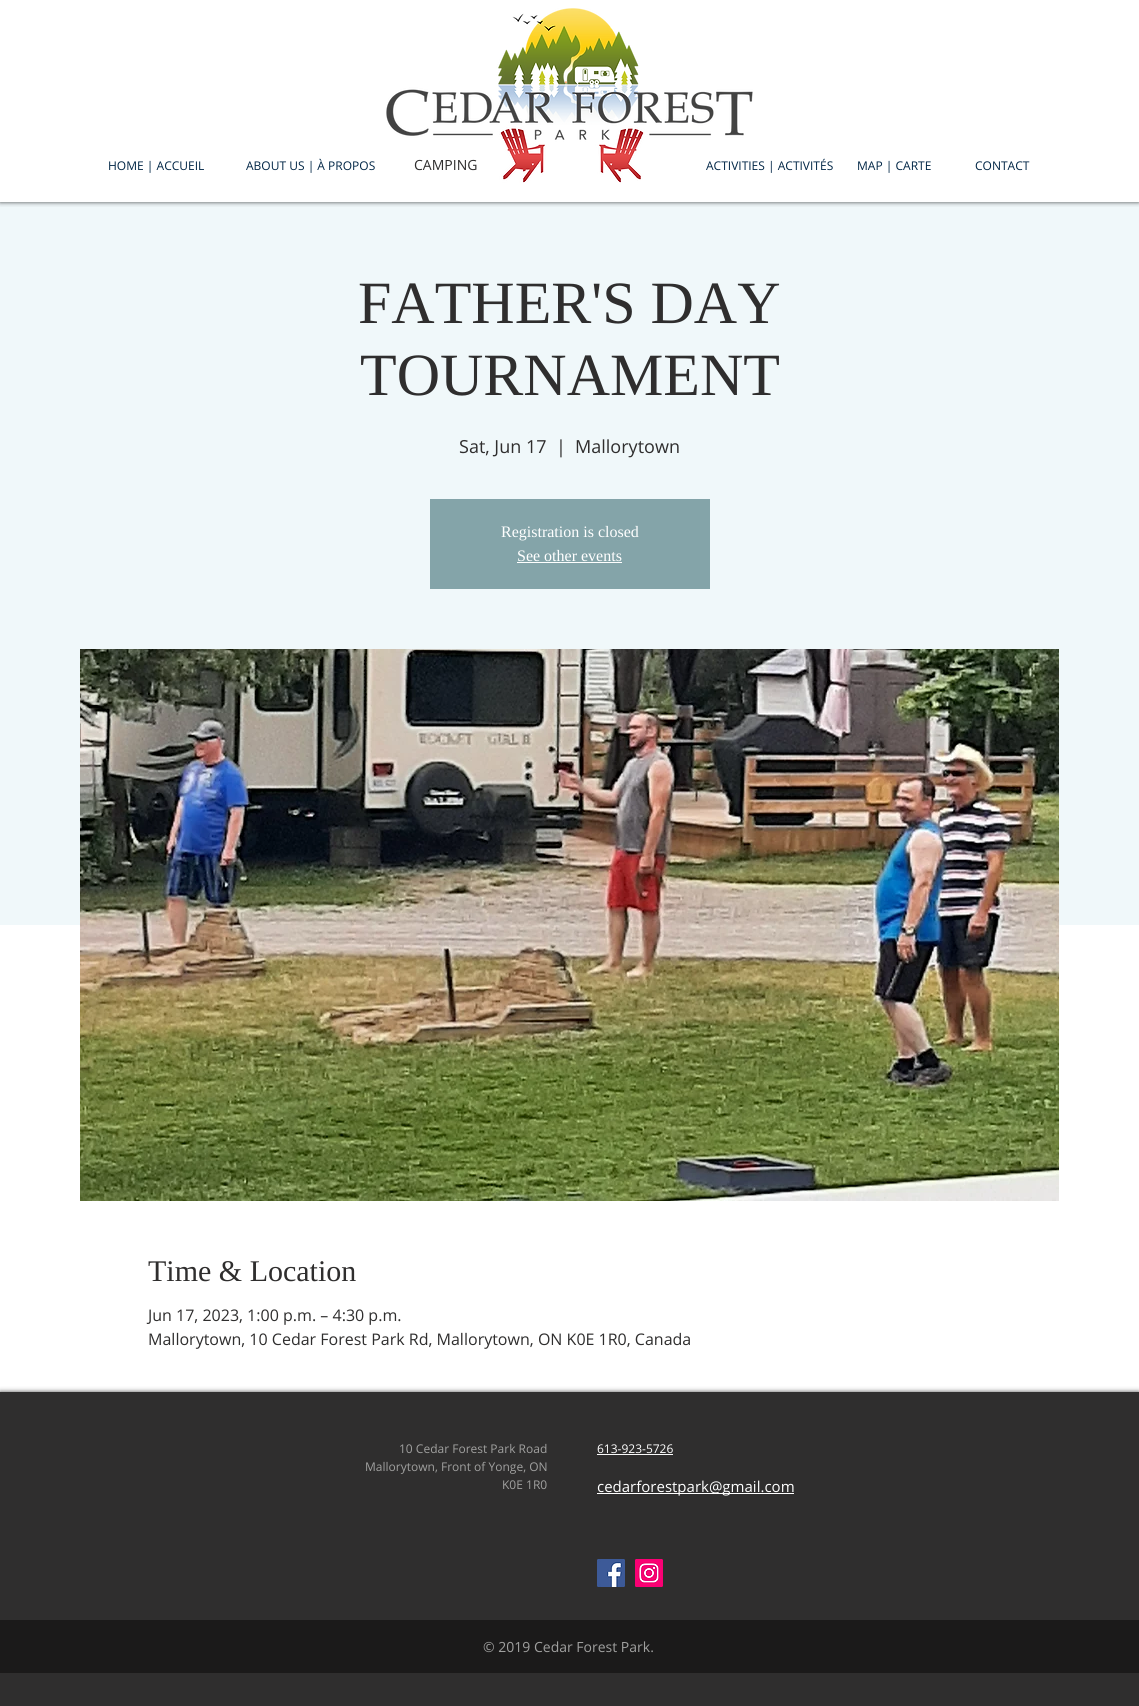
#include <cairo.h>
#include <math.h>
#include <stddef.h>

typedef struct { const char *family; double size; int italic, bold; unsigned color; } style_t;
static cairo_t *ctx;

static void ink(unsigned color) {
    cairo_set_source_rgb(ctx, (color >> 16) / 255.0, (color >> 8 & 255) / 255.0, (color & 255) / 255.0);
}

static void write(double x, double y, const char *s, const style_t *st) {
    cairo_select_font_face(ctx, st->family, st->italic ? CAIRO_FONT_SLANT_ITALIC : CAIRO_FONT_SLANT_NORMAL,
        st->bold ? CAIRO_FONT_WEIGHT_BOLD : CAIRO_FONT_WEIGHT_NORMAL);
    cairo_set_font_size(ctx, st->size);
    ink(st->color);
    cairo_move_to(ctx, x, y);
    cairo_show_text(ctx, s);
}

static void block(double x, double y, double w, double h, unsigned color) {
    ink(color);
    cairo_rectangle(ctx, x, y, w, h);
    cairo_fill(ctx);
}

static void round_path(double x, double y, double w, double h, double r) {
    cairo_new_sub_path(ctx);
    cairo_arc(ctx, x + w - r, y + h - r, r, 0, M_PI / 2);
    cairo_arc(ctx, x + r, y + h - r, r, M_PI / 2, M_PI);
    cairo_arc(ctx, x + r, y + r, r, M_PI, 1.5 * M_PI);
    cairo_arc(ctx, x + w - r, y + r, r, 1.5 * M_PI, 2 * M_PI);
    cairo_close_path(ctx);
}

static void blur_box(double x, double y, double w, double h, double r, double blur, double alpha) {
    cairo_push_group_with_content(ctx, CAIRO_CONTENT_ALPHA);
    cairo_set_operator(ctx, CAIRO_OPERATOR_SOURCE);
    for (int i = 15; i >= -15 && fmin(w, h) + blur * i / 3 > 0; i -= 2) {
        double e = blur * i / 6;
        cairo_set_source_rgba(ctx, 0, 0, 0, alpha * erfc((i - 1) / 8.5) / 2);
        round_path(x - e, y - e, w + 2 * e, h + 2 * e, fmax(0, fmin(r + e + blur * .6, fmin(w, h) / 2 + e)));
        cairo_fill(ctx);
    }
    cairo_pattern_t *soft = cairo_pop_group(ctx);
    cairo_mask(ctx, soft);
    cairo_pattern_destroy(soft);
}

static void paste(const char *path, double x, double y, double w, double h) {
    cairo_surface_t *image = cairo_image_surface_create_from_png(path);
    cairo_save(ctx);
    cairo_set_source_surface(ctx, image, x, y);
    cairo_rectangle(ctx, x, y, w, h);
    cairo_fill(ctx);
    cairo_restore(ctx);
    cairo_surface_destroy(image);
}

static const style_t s1 = {"Open Sans", 12, 0, 0, 0x012646};
static const style_t s2 = {"Open Sans", 14, 0, 0, 0x2f2e2e};
static const style_t s3 = {"Liberation Serif", 60, 0, 0, 0x2f2e2e};
static const style_t s4 = {"Open Sans", 18, 0, 0, 0x2f2e2e};
static const style_t s5 = {"Liberation Serif", 16, 0, 0, 0xffffff};
static const style_t s6 = {"Liberation Serif", 30, 0, 0, 0x2f2e2e};
static const style_t s7 = {"Open Sans", 16, 0, 0, 0x2f2e2e};
static const style_t s8 = {"Open Sans", 12, 0, 0, 0xa0a09f};
static const style_t s9 = {"Open Sans", 12, 0, 0, 0xffffff};
static const style_t s10 = {"Open Sans", 15, 0, 0, 0xffffff};
static const style_t s11 = {"Open Sans", 14, 0, 0, 0xa0a09f};

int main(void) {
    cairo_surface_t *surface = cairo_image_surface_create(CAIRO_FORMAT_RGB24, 1139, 1706);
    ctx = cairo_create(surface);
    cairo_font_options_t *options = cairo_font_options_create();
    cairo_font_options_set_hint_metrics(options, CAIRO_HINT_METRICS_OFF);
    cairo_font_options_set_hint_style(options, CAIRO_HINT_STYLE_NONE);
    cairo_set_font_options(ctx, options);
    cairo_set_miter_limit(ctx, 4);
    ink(0xffffff);
    cairo_paint(ctx);
    block(0, 202, 1139, 723, 0xf0f8fa);
    cairo_save(ctx);
    cairo_rectangle(ctx, 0, 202, 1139, 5);
    cairo_clip(ctx);
    ink(0x000000);
    blur_box(0, 0, 1139, 202, 0, 2.5, 0.7);
    cairo_restore(ctx);
    write(246, 170, "ABOUT US | À PROPOS", &s1);
    paste("pic1.png", 386, 8, 367, 175);
    write(706, 170, "ACTIVITIES | ACTIVITÉS", &s1);
    write(108, 170, "HOME | ACCUEIL", &s1);
    write(414, 170, "CAMPING", &s2);
    write(857, 170, "MAP | CARTE", &s1);
    write(975, 170, "CONTACT", &s1);
    write(358, 323, "FATHER'S DAY", &s3);
    write(360, 395, "TOURNAMENT", &s3);
    write(459, 453, "Sat, Jun 17", &s4);
    write(556, 453, "|", &s4);
    write(575, 453, "Mallorytown", &s4);
    block(430, 499, 280, 90, 0x84a4a9);
    write(501, 537, "Registration is closed", &s5);
    write(517, 561, "See other events", &s5);
    block(517, 562, 105, 1, 0xffffff);
    paste("pic2.png", 80, 649, 979, 552);
    write(148, 1281, "Time & Location", &s6);
    write(148, 1321, "Jun 17, 2023, 1:00 p.m. – 4:30 p.m.", &s7);
    write(148, 1345, "Mallorytown, 10 Cedar Forest Park Rd, Mallorytown, ON K0E 1R0, Canada", &s7);
    ink(0x000000);
    blur_box(0, 1392, 1139, 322, 0, 2.5, 0.7);
    block(0, 1392, 1139, 314, 0x2f2e2e);
    write(399, 1453, "10 Cedar Forest Park Road", &s8);
    write(365, 1471, "Mallorytown, Front of Yonge, ON", &s8);
    write(502, 1489, "K0E 1R0", &s8);
    write(597, 1453, "613-923-5726", &s9);
    block(597, 1454, 76, 1, 0xfafafa);
    block(597, 1493, 197, 1, 0xffffff);
    write(597, 1492, "cedarforestpark@gmail.com", &s10);
    paste("pic3.png", 597, 1559, 28, 28);
    paste("pic4.png", 635, 1559, 28, 28);
    block(0, 1620, 1139, 53, 0x1b1a1a);
    write(483, 1652, "© 2019 Cedar Forest Park.", &s11);
    cairo_surface_write_to_png(surface, "screenshot.png");
    cairo_font_options_destroy(options);
    cairo_destroy(ctx);
    cairo_surface_destroy(surface);
    return 0;
}
